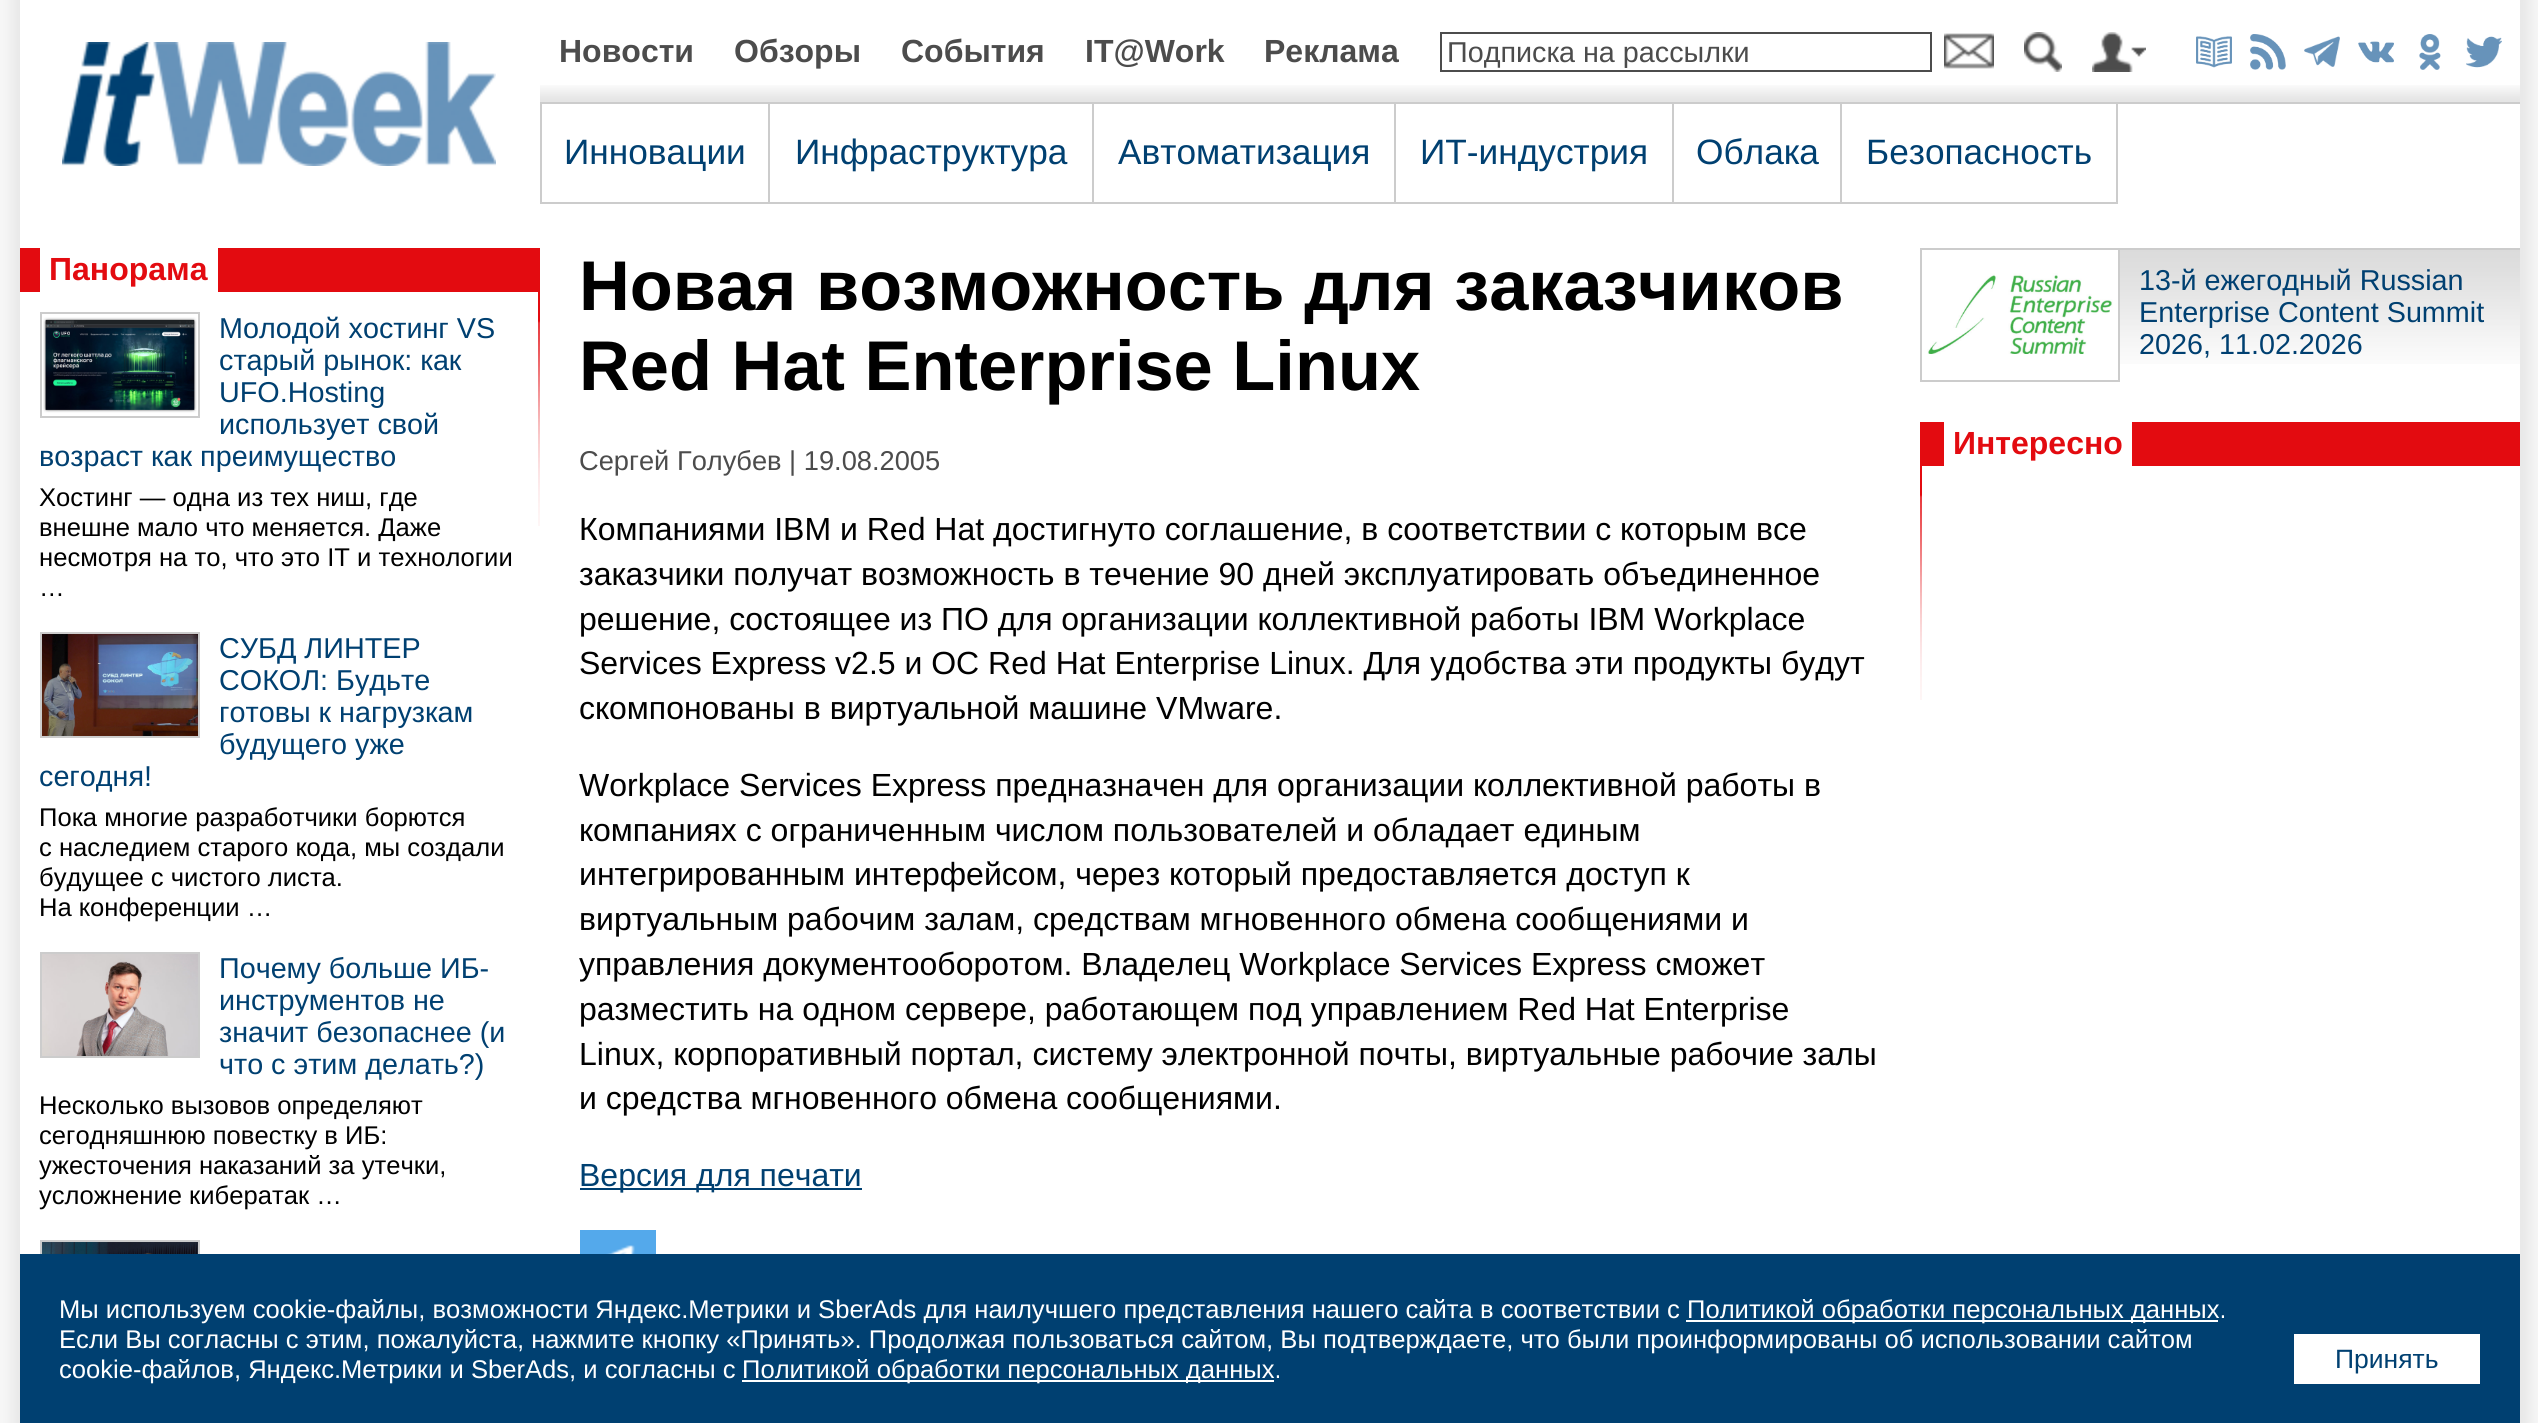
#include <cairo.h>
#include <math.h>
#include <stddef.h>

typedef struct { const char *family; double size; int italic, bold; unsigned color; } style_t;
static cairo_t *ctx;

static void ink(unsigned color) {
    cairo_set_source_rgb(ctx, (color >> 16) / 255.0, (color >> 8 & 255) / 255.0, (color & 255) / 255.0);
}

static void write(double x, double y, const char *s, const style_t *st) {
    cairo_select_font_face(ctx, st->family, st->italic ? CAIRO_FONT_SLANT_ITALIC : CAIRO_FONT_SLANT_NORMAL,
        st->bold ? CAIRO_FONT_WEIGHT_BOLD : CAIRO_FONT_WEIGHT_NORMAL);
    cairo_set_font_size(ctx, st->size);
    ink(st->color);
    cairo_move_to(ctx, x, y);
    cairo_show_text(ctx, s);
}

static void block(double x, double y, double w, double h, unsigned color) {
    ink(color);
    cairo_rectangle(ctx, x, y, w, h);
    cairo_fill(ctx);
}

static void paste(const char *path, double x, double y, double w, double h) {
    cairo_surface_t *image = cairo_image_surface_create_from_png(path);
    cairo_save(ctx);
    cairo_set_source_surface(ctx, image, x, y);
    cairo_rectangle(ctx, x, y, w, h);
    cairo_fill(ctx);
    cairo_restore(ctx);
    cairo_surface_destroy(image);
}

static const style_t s1 = {"Liberation Sans", 32, 0, 1, 0x4c4c4c};
static const style_t s2 = {"Liberation Sans", 28.75, 0, 0, 0x4c4c4c};
static const style_t s3 = {"Liberation Sans", 35.25, 0, 0, 0x004071};
static const style_t s4 = {"Liberation Sans", 32, 0, 1, 0xe30b10};
static const style_t s5 = {"Liberation Sans", 28.75, 0, 0, 0x004071};
static const style_t s6 = {"Liberation Sans", 25.6, 0, 0, 0x000000};
static const style_t s7 = {"Liberation Sans", 70.4, 0, 1, 0x000000};
static const style_t s8 = {"Liberation Sans", 27.25, 0, 0, 0x4c4c4c};
static const style_t s9 = {"Liberation Sans", 32, 0, 0, 0x000000};
static const style_t s10 = {"Liberation Sans", 32, 0, 0, 0x004071};
static const style_t s11 = {"Liberation Sans", 25.6, 0, 0, 0xffffff};
static const style_t s12 = {"Liberation Sans", 26.5, 0, 0, 0x004071};

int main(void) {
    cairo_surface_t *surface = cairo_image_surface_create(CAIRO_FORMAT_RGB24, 2538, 1423);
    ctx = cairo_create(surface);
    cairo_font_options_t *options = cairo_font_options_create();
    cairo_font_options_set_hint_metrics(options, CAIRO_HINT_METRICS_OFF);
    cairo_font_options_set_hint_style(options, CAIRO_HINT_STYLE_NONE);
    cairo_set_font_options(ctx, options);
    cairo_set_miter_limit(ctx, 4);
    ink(0xffffff);
    cairo_paint(ctx);
    paste("pic1.png", 0, 0, 2538, 1423);
    block(20, 0, 2500, 1254, 0xffffff);
    paste("pic2.png", 62, 42, 434, 124);
    paste("pic3.png", 540, 85, 1980, 17);
    write(559, 62, "Новости", &s1);
    write(734, 62, "Обзоры", &s1);
    write(901, 62, "События", &s1);
    write(1085, 62, "IT@Work", &s1);
    write(1264, 62, "Реклама", &s1);
    cairo_rectangle(ctx, 1441, 33, 490, 38);
    cairo_stroke(ctx);
    write(1447, 62, "Подписка на рассылки", &s2);
    paste("pic4.png", 1944, 33, 50, 36);
    paste("pic5.png", 2024, 32, 38, 40);
    paste("pic6.png", 2092, 32, 54, 40);
    paste("pic7.png", 2196, 36, 36, 32);
    paste("pic8.png", 2250, 34, 36, 36);
    paste("pic9.png", 2304, 36, 36, 31);
    paste("pic10.png", 2358, 41, 36, 22);
    paste("pic11.png", 2419, 34, 22, 36);
    paste("pic12.png", 2466, 36, 36, 32);
    block(1840, 102, 680, 2, 0xcccccc);
    block(2116, 102, 2, 102, 0xcccccc);
    block(1840, 202, 278, 2, 0xcccccc);
    block(1840, 102, 2, 102, 0xcccccc);
    block(1672, 102, 170, 2, 0xcccccc);
    block(1672, 202, 170, 2, 0xcccccc);
    block(1672, 102, 2, 102, 0xcccccc);
    block(1394, 102, 280, 2, 0xcccccc);
    block(1394, 202, 280, 2, 0xcccccc);
    block(1394, 102, 2, 102, 0xcccccc);
    block(1092, 102, 304, 2, 0xcccccc);
    block(1092, 202, 304, 2, 0xcccccc);
    block(1092, 102, 2, 102, 0xcccccc);
    block(768, 102, 326, 2, 0xcccccc);
    block(768, 202, 326, 2, 0xcccccc);
    block(768, 102, 2, 102, 0xcccccc);
    block(540, 102, 230, 2, 0xcccccc);
    block(540, 202, 230, 2, 0xcccccc);
    block(540, 102, 2, 102, 0xcccccc);
    write(564, 164, "Инновации", &s3);
    write(795, 164, "Инфраструктура", &s3);
    write(1118, 164, "Автоматизация", &s3);
    write(1420, 164, "ИТ-индустрия", &s3);
    write(1696, 164, "Облака", &s3);
    write(1866, 164, "Безопасность", &s3);
    block(20, 248, 520, 44, 0xe30b10);
    block(40, 248, 178, 44, 0xffffff);
    write(49, 280, "Панорама", &s4);
    cairo_rectangle(ctx, 41, 313, 158, 104);
    ink(0xcccccc);
    cairo_stroke(ctx);
    paste("pic13.png", 43, 317, 154, 96);
    write(219, 338, "Молодой хостинг VS", &s5);
    write(219, 370, "старый рынок: как", &s5);
    write(219, 402, "UFO.Hosting", &s5);
    write(219, 434, "использует свой", &s5);
    write(39, 466, "возраст как преимущество", &s5);
    write(39, 506, "Хостинг — одна из тех ниш, где", &s6);
    write(39, 536, "внешне мало что меняется. Даже", &s6);
    write(39, 566, "несмотря на то, что это IT и технологии", &s6);
    write(39, 596, "…", &s6);
    cairo_rectangle(ctx, 41, 633, 158, 104);
    ink(0xcccccc);
    cairo_stroke(ctx);
    paste("pic14.png", 42, 634, 156, 102);
    write(219, 658, "СУБД ЛИНТЕР", &s5);
    write(219, 690, "СОКОЛ: Будьте", &s5);
    write(219, 722, "готовы к нагрузкам", &s5);
    write(219, 754, "будущего уже", &s5);
    write(39, 786, "сегодня!", &s5);
    write(39, 826, "Пока многие разработчики борются", &s6);
    write(39, 856, "с наследием старого кода, мы создали", &s6);
    write(39, 886, "будущее с чистого листа.", &s6);
    write(39, 916, "На конференции …", &s6);
    cairo_rectangle(ctx, 41, 953, 158, 104);
    ink(0xcccccc);
    cairo_stroke(ctx);
    paste("pic15.png", 42, 954, 156, 102);
    write(219, 978, "Почему больше ИБ-", &s5);
    write(219, 1010, "инструментов не", &s5);
    write(219, 1042, "значит безопаснее (и", &s5);
    write(219, 1074, "что с этим делать?)", &s5);
    write(39, 1114, "Несколько вызовов определяют", &s6);
    write(39, 1144, "сегодняшнюю повестку в ИБ:", &s6);
    write(39, 1174, "ужесточения наказаний за утечки,", &s6);
    write(39, 1204, "усложнение кибератак …", &s6);
    cairo_rectangle(ctx, 41, 1241, 158, 104);
    ink(0xcccccc);
    cairo_stroke(ctx);
    paste("pic16.png", 42, 1242, 156, 12);
    paste("pic17.png", 538, 292, 2, 234);
    write(579, 310, "Новая возможность для заказчиков", &s7);
    write(579, 390, "Red Hat Enterprise Linux", &s7);
    write(579, 470, "Сергей Голубев | 19.08.2005", &s8);
    write(579, 540, "Компаниями IBM и Red Hat достигнуто соглашение, в соответствии с которым все", &s9);
    write(579, 585, "заказчики получат возможность в течение 90 дней эксплуатировать объединенное", &s9);
    write(579, 630, "решение, состоящее из ПО для организации коллективной работы IBM Workplace", &s9);
    write(579, 674, "Services Express v2.5 и ОС Red Hat Enterprise Linux. Для удобства эти продукты будут", &s9);
    write(579, 719, "скомпонованы в виртуальной машине VMware.", &s9);
    write(579, 796, "Workplace Services Express предназначен для организации коллективной работы в", &s9);
    write(579, 841, "компаниях с ограниченным числом пользователей и обладает единым", &s9);
    write(579, 885, "интегрированным интерфейсом, через который предоставляется доступ к", &s9);
    write(579, 930, "виртуальным рабочим залам, средствам мгновенного обмена сообщениями и", &s9);
    write(579, 975, "управления документооборотом. Владелец Workplace Services Express сможет", &s9);
    write(579, 1020, "разместить на одном сервере, работающем под управлением Red Hat Enterprise", &s9);
    write(579, 1065, "Linux, корпоративный портал, систему электронной почты, виртуальные рабочие залы", &s9);
    write(579, 1109, "и средства мгновенного обмена сообщениями.", &s9);
    block(580, 1188, 282, 2, 0x004071);
    write(579, 1186, "Версия для печати", &s10);
    paste("pic18.png", 580, 1230, 76, 24);
    paste("pic19.png", 2120, 250, 400, 114);
    cairo_rectangle(ctx, 1921, 249, 198, 132);
    ink(0xcccccc);
    cairo_stroke(ctx);
    paste("pic20.png", 1922, 250, 196, 114);
    block(2120, 248, 400, 2, 0xcccccc);
    write(2139, 290, "13-й ежегодный Russian", &s5);
    write(2139, 322, "Enterprise Content Summit", &s5);
    write(2139, 354, "2026, 11.02.2026", &s5);
    block(1920, 422, 600, 44, 0xe30b10);
    block(1944, 422, 188, 44, 0xffffff);
    write(1953, 454, "Интересно", &s4);
    paste("pic17.png", 1920, 466, 2, 234);
    block(20, 1254, 2500, 169, 0x004071);
    write(59, 1318, "Мы используем cookie-файлы, возможности Яндекс.Метрики и SberAds для наилучшего представления нашего сайта в соответствии с", &s11);
    block(1686, 1320, 532, 2, 0xffffff);
    write(1687, 1318, "Политикой обработки персональных данных.", &s11);
    write(59, 1348, "Если Вы согласны с этим, пожалуйста, нажмите кнопку «Принять». Продолжая пользоваться сайтом, Вы подтверждаете, что были проинформированы об использовании сайтом", &s11);
    write(59, 1378, "cookie-файлов, Яндекс.Метрики и SberAds, и согласны с", &s11);
    block(742, 1380, 532, 2, 0xffffff);
    write(742, 1378, "Политикой обработки персональных данных.", &s11);
    block(2294, 1334, 186, 50, 0xffffff);
    write(2335, 1368, "Принять", &s12);
    cairo_surface_write_to_png(surface, "screenshot.png");
    cairo_font_options_destroy(options);
    cairo_destroy(ctx);
    cairo_surface_destroy(surface);
    return 0;
}
